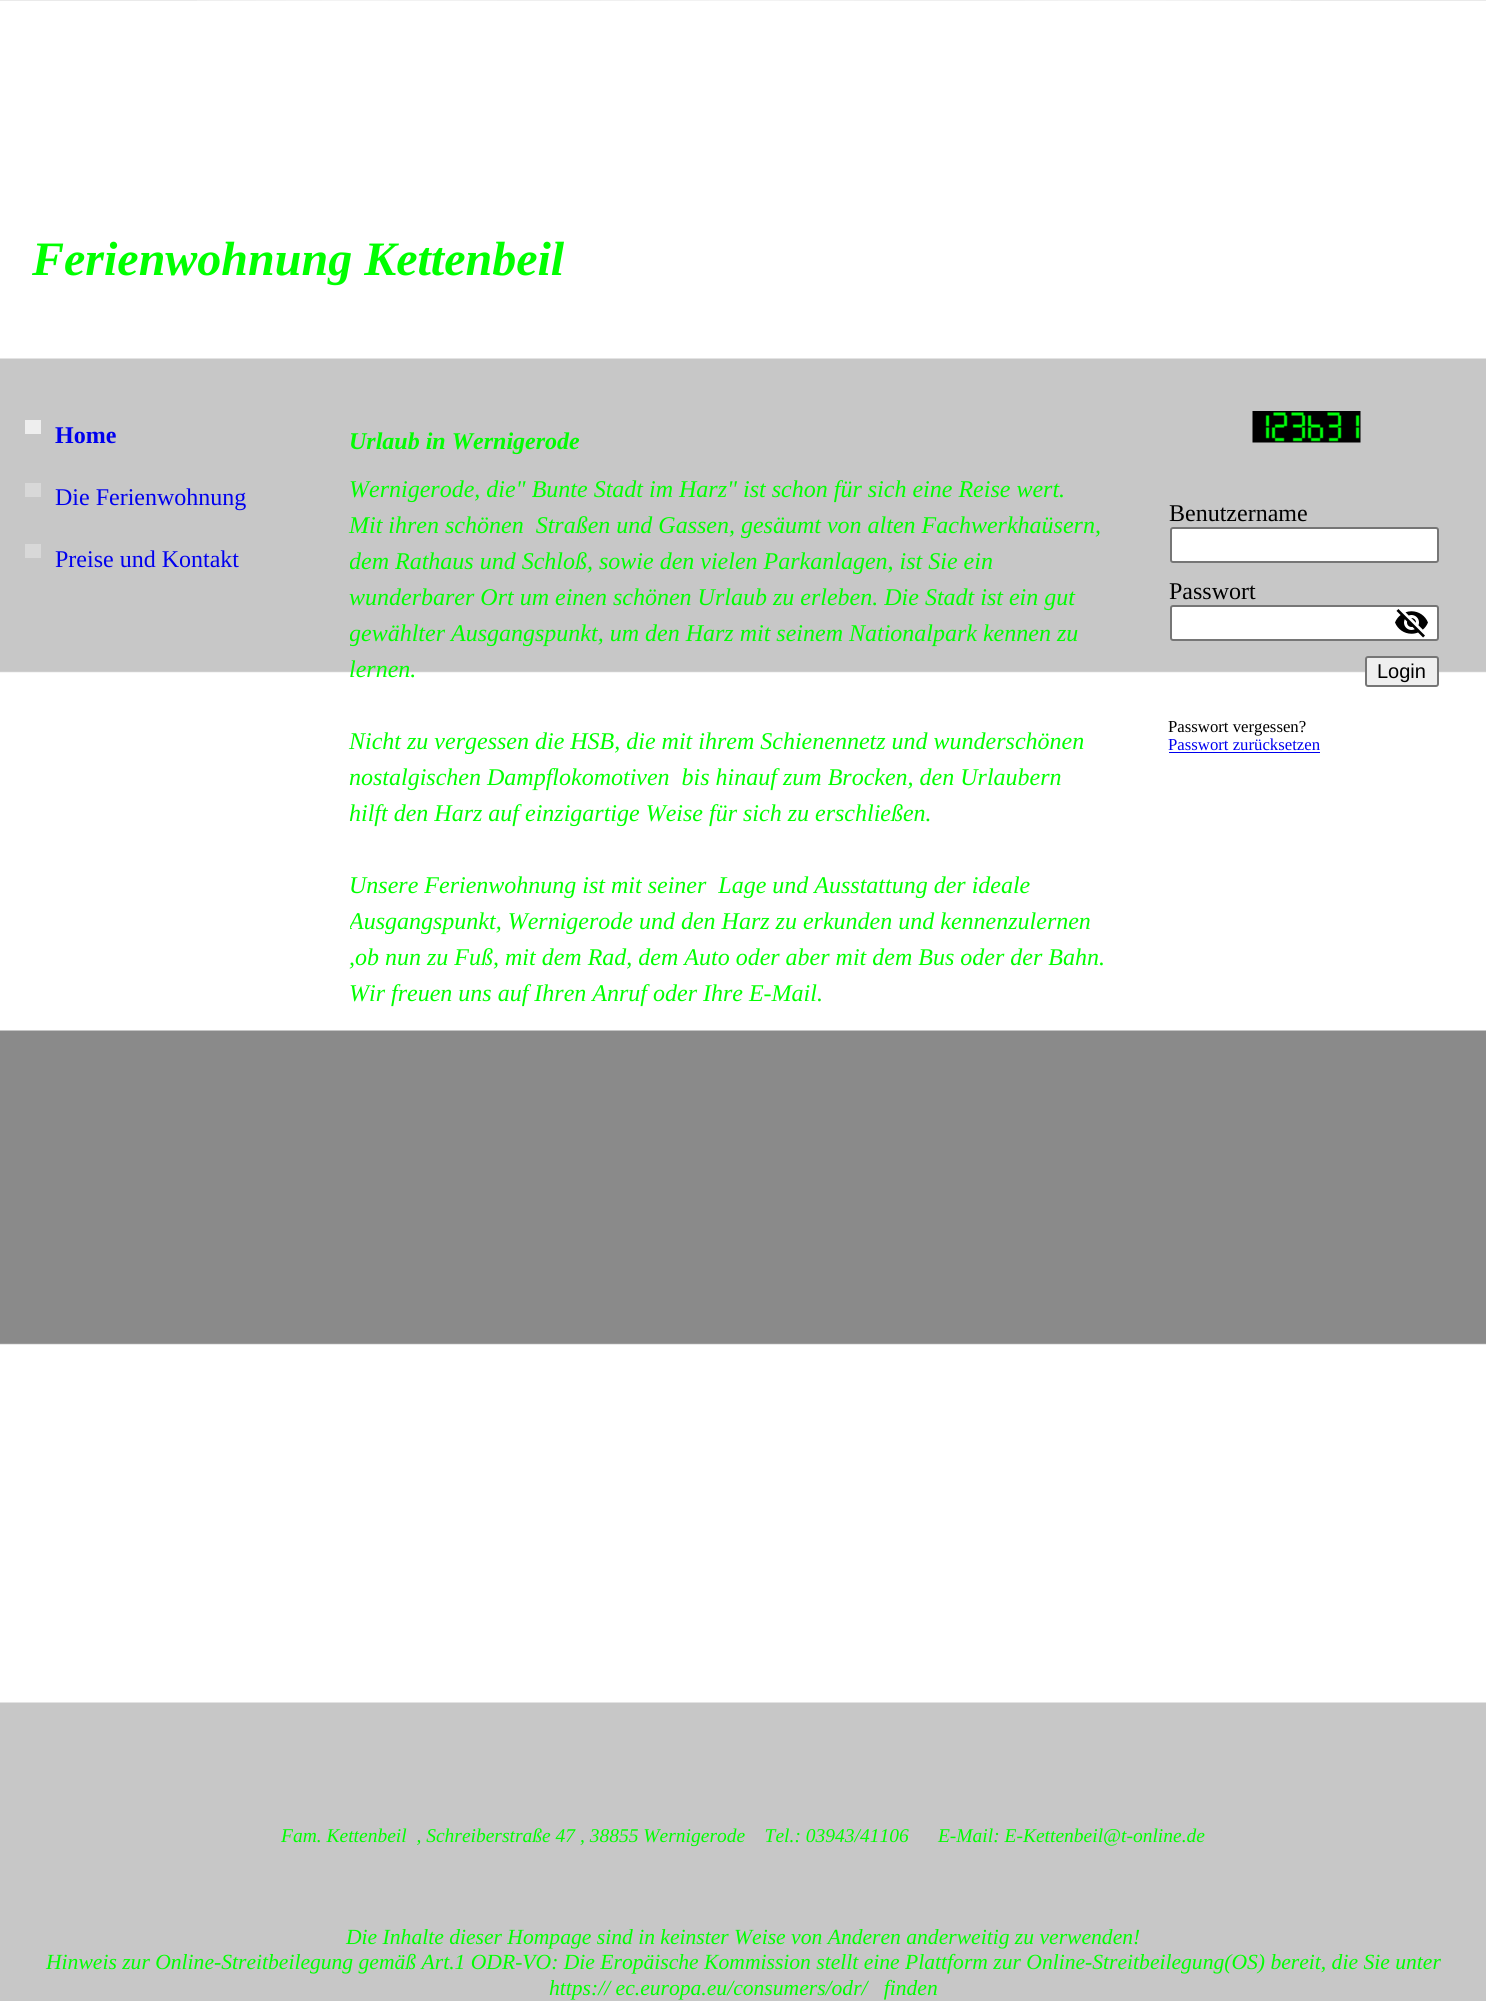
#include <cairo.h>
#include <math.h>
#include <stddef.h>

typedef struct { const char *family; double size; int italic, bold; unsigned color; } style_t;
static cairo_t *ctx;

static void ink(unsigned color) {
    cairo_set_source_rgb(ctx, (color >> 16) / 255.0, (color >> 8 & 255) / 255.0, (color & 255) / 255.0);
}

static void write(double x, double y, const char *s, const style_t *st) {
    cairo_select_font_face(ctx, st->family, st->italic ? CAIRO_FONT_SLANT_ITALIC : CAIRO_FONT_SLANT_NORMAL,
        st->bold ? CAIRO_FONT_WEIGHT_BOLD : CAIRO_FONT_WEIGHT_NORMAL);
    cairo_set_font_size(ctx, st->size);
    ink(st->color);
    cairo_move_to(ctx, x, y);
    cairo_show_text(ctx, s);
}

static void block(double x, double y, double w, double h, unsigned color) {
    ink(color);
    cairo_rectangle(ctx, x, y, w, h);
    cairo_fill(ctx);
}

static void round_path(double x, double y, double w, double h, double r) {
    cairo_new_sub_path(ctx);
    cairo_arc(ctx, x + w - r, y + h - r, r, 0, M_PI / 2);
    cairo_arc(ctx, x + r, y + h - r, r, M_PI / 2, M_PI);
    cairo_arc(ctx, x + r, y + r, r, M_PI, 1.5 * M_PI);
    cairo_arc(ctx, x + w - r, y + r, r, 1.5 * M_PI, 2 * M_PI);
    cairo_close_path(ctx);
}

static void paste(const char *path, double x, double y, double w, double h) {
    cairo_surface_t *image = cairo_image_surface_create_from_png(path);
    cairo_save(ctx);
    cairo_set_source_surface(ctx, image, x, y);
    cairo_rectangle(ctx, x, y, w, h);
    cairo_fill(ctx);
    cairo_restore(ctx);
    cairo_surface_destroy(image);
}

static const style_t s1 = {"Liberation Serif", 48, 1, 1, 0x00ff00};
static const style_t s2 = {"Liberation Serif", 24, 0, 1, 0x0000ee};
static const style_t s3 = {"Liberation Serif", 24, 0, 0, 0x0000ee};
static const style_t s4 = {"Liberation Serif", 24, 1, 1, 0x00ff00};
static const style_t s5 = {"Liberation Serif", 24, 1, 0, 0x00ff00};
static const style_t s6 = {"Liberation Serif", 24, 0, 0, 0x000000};
static const style_t s7 = {"Liberation Sans", 20, 0, 0, 0x000000};
static const style_t s8 = {"Liberation Serif", 16.75, 0, 0, 0x000000};
static const style_t s9 = {"Liberation Serif", 16.75, 0, 0, 0x0000ee};
static const style_t s10 = {"Liberation Serif", 19.5, 1, 0, 0x00ff00};
static const style_t s11 = {"Liberation Serif", 21.6, 1, 0, 0x00ff00};

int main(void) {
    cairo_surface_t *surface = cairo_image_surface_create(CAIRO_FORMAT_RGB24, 1486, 2001);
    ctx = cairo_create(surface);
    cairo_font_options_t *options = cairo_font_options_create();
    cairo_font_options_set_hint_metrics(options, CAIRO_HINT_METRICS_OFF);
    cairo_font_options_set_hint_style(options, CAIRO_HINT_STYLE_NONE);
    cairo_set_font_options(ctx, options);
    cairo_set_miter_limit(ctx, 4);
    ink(0xffffff);
    cairo_paint(ctx);
    paste("pic1.png", 0, 0, 1486, 2001);
    paste("pic2.png", 197, 0, 1094, 1);
    write(32, 275, "Ferienwohnung Kettenbeil", &s1);
    block(25, 420, 16, 14, 0xeeeeee);
    write(55, 443, "Home", &s2);
    block(25, 483, 16, 14, 0xd8d8d8);
    write(55, 505, "Die Ferienwohnung", &s3);
    block(25, 544, 16, 14, 0xd8d8d8);
    write(55, 567, "Preise und Kontakt", &s3);
    write(349, 449, "Urlaub in Wernigerode", &s4);
    write(349, 497, "Wernigerode, die\" Bunte Stadt im Harz\" ist schon für sich eine Reise wert.", &s5);
    write(349, 533, "Mit ihren schönen  Straßen und Gassen, gesäumt von alten Fachwerkhaüsern,", &s5);
    cairo_save(ctx);
    cairo_rectangle(ctx, 350, 404, 759, 1311);
    cairo_clip(ctx);
    write(349, 569, "dem Rathaus und Schloß, sowie den vielen Parkanlagen, ist Sie ein", &s5);
    cairo_restore(ctx);
    write(349, 605, "wunderbarer Ort um einen schönen Urlaub zu erleben. Die Stadt ist ein gut", &s5);
    cairo_save(ctx);
    cairo_rectangle(ctx, 350, 404, 759, 1311);
    cairo_clip(ctx);
    write(349, 641, "gewählter Ausgangspunkt, um den Harz mit seinem Nationalpark kennen zu", &s5);
    cairo_restore(ctx);
    write(349, 677, "lernen.", &s5);
    write(349, 749, "Nicht zu vergessen die HSB, die mit ihrem Schienennetz und wunderschönen", &s5);
    write(349, 785, "nostalgischen Dampflokomotiven  bis hinauf zum Brocken, den Urlaubern", &s5);
    write(349, 821, "hilft den Harz auf einzigartige Weise für sich zu erschließen.", &s5);
    write(349, 893, "Unsere Ferienwohnung ist mit seiner  Lage und Ausstattung der ideale", &s5);
    cairo_save(ctx);
    cairo_rectangle(ctx, 350, 404, 759, 1311);
    cairo_clip(ctx);
    write(349, 929, "Ausgangspunkt, Wernigerode und den Harz zu erkunden und kennenzulernen", &s5);
    cairo_restore(ctx);
    write(349, 965, ",ob nun zu Fuß, mit dem Rad, dem Auto oder aber mit dem Bus oder der Bahn.", &s5);
    write(349, 1001, "Wir freuen uns auf Ihren Anruf oder Ihre E-Mail.", &s5);
    paste("pic3.png", 1252, 411, 109, 32);
    write(1169, 521, "Benutzername", &s6);
    ink(0xffffff);
    round_path(1171, 528, 267, 34, 2);
    cairo_fill_preserve(ctx);
    ink(0x767676);
    cairo_stroke(ctx);
    write(1169, 599, "Passwort", &s6);
    ink(0xffffff);
    round_path(1171, 606, 267, 34, 2);
    cairo_fill_preserve(ctx);
    ink(0x767676);
    cairo_stroke(ctx);
    paste("pic4.png", 1395, 609, 33, 29);
    ink(0xefefef);
    round_path(1366, 657, 72, 29, 2);
    cairo_fill_preserve(ctx);
    ink(0x767676);
    cairo_stroke(ctx);
    write(1377, 678, "Login", &s7);
    write(1168, 732, "Passwort vergessen?", &s8);
    write(1168, 750, "Passwort zurücksetzen", &s9);
    block(1169, 752, 151, 1, 0x0000ee);
    write(281, 1842, "Fam. Kettenbeil  , Schreiberstraße 47 , 38855 Wernigerode    Tel.: 03943/41106      E-Mail: E-Kettenbeil@t-online.de", &s10);
    write(346, 1944, "Die Inhalte dieser Hompage sind in keinster Weise von Anderen anderweitig zu verwenden!", &s11);
    write(46, 1969, "Hinweis zur Online-Streitbeilegung gemäß Art.1 ODR-VO: Die Eropäische Kommission stellt eine Plattform zur Online-Streitbeilegung(OS) bereit, die Sie unter", &s11);
    write(549, 1995, "https:// ec.europa.eu/consumers/odr/   finden", &s11);
    cairo_surface_write_to_png(surface, "screenshot.png");
    cairo_font_options_destroy(options);
    cairo_destroy(ctx);
    cairo_surface_destroy(surface);
    return 0;
}
